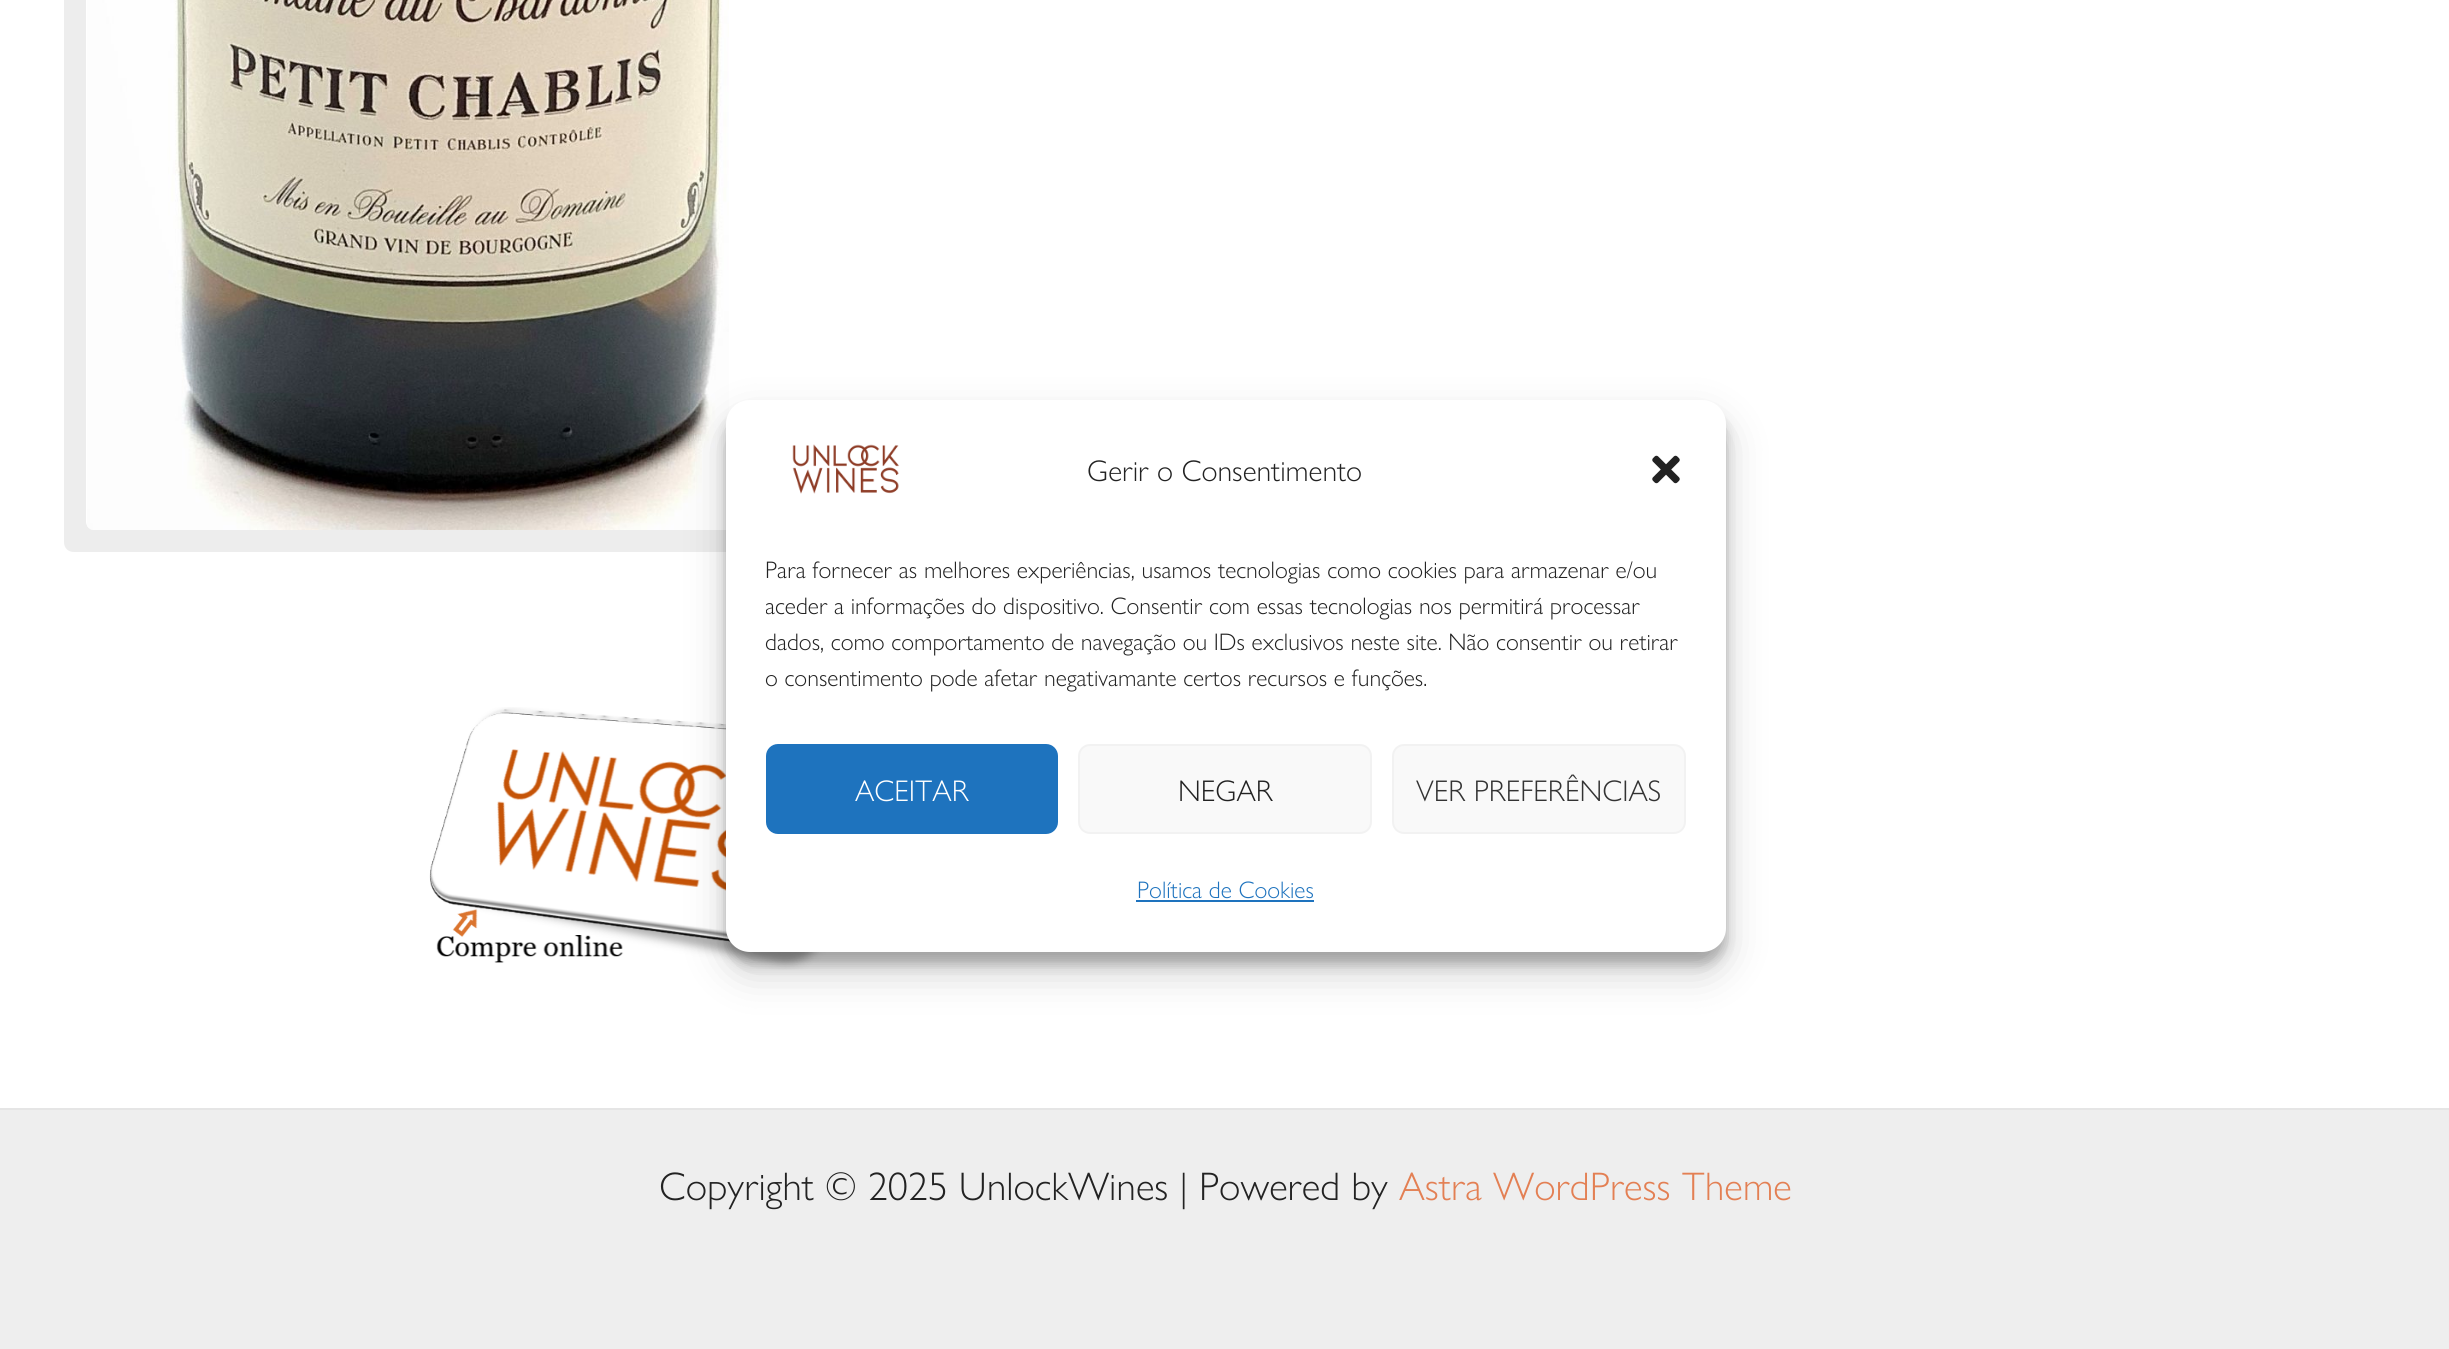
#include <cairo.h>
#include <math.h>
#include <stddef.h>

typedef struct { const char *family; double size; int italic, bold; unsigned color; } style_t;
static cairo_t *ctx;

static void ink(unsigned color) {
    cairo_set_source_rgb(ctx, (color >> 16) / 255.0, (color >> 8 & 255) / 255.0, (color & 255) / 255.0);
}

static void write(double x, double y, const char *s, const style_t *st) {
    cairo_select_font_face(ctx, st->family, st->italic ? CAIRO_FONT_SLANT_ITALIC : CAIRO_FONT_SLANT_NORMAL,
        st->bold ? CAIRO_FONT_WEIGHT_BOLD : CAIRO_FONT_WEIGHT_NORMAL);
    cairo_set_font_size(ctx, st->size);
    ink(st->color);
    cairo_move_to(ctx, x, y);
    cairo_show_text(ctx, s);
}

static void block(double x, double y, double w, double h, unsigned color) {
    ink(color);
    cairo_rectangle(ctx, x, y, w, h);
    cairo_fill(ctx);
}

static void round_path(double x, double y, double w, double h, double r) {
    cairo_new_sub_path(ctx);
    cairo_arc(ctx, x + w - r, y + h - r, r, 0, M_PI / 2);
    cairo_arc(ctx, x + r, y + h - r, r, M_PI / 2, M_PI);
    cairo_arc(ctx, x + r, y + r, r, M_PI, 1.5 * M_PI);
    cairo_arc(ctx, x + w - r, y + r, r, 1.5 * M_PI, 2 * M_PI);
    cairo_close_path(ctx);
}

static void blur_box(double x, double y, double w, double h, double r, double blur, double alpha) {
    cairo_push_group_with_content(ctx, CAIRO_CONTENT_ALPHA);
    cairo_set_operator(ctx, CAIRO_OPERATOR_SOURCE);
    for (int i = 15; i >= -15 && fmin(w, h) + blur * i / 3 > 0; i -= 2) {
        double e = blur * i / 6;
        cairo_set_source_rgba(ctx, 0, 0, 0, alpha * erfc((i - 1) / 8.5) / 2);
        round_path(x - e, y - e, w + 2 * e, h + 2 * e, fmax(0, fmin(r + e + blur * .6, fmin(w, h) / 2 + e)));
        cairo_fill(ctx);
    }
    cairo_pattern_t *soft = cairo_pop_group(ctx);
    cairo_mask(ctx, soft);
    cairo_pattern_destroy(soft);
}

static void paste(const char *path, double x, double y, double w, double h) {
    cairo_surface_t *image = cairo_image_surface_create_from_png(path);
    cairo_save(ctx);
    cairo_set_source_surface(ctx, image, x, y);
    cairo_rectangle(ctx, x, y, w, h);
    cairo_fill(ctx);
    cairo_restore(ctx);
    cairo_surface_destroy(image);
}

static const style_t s1 = {"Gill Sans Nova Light", 30, 0, 0, 0x222222};
static const style_t s2 = {"Gill Sans Nova Light", 24, 0, 0, 0x222222};
static const style_t s3 = {"Gill Sans Nova Light", 30, 0, 0, 0xffffff};
static const style_t s4 = {"Gill Sans Nova Light", 30, 0, 0, 0x333333};
static const style_t s5 = {"Gill Sans Nova Light", 24, 0, 0, 0x1e73be};
static const style_t s6 = {"Gill Sans Nova Light", 40, 0, 0, 0x222222};
static const style_t s7 = {"Gill Sans Nova Light", 40, 0, 0, 0xe37f53};

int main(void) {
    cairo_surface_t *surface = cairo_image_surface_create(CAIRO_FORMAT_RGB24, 2449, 1349);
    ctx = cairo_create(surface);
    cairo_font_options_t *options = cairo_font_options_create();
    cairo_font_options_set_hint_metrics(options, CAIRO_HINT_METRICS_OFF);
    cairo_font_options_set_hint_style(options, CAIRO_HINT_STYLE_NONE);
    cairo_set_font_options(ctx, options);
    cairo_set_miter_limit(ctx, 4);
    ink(0xffffff);
    cairo_paint(ctx);
    ink(0xededed);
    cairo_new_path(ctx);
    cairo_move_to(ctx, 74, -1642);
    cairo_curve_to(ctx, 68, -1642, 64, -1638, 64, -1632);
    cairo_line_to(ctx, 64, 542);
    cairo_curve_to(ctx, 64, 548, 68, 552, 74, 552);
    cairo_line_to(ctx, 802, 552);
    cairo_curve_to(ctx, 808, 552, 812, 548, 812, 542);
    cairo_line_to(ctx, 812, 530);
    cairo_line_to(ctx, 94, 530);
    cairo_curve_to(ctx, 90, 530, 86, 526, 86, 522);
    cairo_line_to(ctx, 86, -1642);
    cairo_close_path(ctx);
    cairo_fill(ctx);
    paste("pic3.png", 87, 0, 642, 530);
    paste("pic4.png", 429, 707, 419, 263);
    ink(0x000000);
    blur_box(726, 412, 1000, 552, 24, 6, 0.23);
    blur_box(726, 420, 1000, 552, 24, 20, 0.19);
    ink(0xffffff);
    round_path(726, 400, 1000, 552, 24);
    cairo_fill(ctx);
    paste("pic1.png", 792, 444, 108, 50);
    write(1087, 481, "Gerir o Consentimento", &s1);
    paste("pic2.png", 1652, 455, 28, 29);
    write(765, 578, "Para fornecer as melhores experiências, usamos tecnologias como cookies para armazenar e/ou", &s2);
    cairo_save(ctx);
    cairo_rectangle(ctx, 766, 550, 920, 154);
    cairo_clip(ctx);
    write(765, 614, "aceder a informações do dispositivo. Consentir com essas tecnologias nos permitirá processar", &s2);
    cairo_restore(ctx);
    write(765, 650, "dados, como comportamento de navegação ou IDs exclusivos neste site. Não consentir ou retirar", &s2);
    write(765, 686, "o consentimento pode afetar negativamante certos recursos e funções.", &s2);
    ink(0x1e73be);
    round_path(767, 745, 290, 88, 11);
    cairo_fill_preserve(ctx);
    cairo_stroke(ctx);
    write(855, 801, "ACEITAR", &s3);
    ink(0xf9f9f9);
    round_path(1079, 745, 292, 88, 11);
    cairo_fill_preserve(ctx);
    ink(0xf2f2f2);
    cairo_stroke(ctx);
    write(1178, 801, "NEGAR", &s1);
    ink(0xf9f9f9);
    round_path(1393, 745, 292, 88, 11);
    cairo_fill_preserve(ctx);
    ink(0xf2f2f2);
    cairo_stroke(ctx);
    write(1416, 801, "VER PREFERÊNCIAS", &s4);
    write(1137, 898, "Política de Cookies", &s5);
    block(1136, 900, 178, 2, 0x1e73be);
    block(0, 1110, 2449, 239, 0xeeeeee);
    block(0, 1108, 2449, 2, 0xe5e5e5);
    write(659, 1200, "Copyright © 2025 UnlockWines | Powered by", &s6);
    write(1399, 1200, "Astra WordPress Theme", &s7);
    cairo_surface_write_to_png(surface, "screenshot.png");
    cairo_font_options_destroy(options);
    cairo_destroy(ctx);
    cairo_surface_destroy(surface);
    return 0;
}
